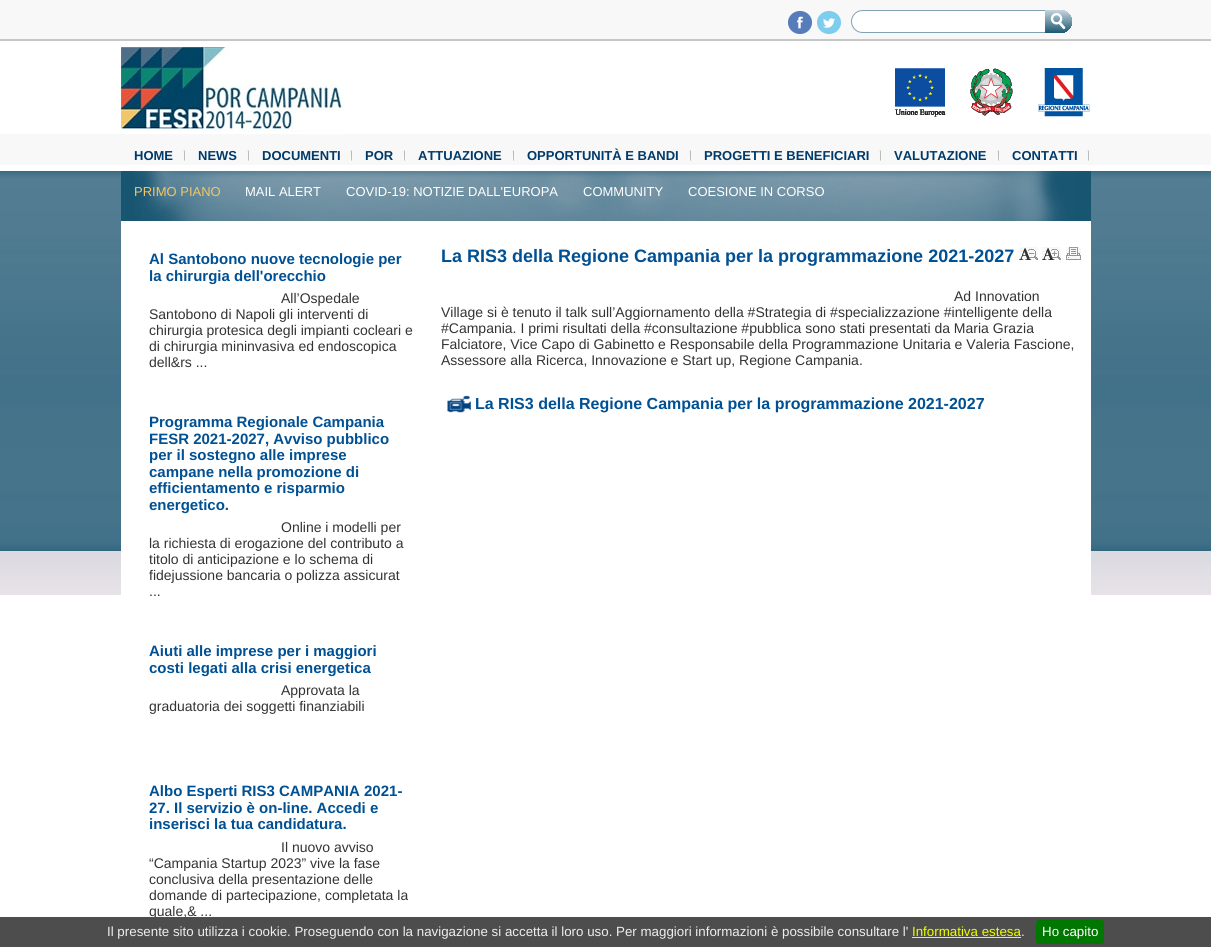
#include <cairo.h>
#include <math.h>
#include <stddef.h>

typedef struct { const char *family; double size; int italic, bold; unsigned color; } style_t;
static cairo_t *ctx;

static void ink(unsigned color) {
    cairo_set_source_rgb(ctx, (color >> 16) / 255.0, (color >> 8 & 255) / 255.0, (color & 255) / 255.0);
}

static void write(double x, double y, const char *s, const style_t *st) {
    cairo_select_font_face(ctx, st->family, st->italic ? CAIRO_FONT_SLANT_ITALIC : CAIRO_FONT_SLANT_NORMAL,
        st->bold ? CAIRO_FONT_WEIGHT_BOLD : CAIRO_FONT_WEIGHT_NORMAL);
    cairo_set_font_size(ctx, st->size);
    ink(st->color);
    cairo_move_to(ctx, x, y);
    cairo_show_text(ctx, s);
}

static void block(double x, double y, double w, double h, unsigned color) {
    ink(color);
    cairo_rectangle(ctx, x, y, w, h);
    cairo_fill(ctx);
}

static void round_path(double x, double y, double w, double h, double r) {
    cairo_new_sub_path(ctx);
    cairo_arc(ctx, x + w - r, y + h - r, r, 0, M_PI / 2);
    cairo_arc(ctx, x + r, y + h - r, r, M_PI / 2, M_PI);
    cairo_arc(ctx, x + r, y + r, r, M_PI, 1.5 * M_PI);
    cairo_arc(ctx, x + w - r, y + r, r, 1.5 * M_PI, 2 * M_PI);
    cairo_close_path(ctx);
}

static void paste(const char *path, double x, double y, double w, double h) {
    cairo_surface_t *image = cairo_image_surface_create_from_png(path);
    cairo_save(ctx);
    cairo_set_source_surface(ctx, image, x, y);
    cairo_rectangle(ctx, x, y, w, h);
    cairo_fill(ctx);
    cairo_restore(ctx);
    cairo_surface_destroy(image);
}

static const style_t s1 = {"Liberation Sans", 13, 0, 1, 0x003a6b};
static const style_t s2 = {"Liberation Sans", 13, 0, 0, 0xf2c667};
static const style_t s3 = {"Liberation Sans", 13, 0, 0, 0xffffff};
static const style_t s4 = {"Liberation Sans", 15, 0, 1, 0x005094};
static const style_t s5 = {"Liberation Sans", 14, 0, 0, 0x333333};
static const style_t s6 = {"Liberation Sans", 18, 0, 1, 0x005094};
static const style_t s7 = {"Liberation Sans", 16, 0, 1, 0x005094};
static const style_t s8 = {"Liberation Sans", 13.33, 0, 0, 0xeeeeee};
static const style_t s9 = {"Liberation Sans", 13.33, 0, 0, 0xeeff00};
static const style_t s10 = {"Liberation Sans", 13.33, 0, 0, 0xffffff};

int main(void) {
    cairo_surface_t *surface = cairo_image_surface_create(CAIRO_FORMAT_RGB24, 1211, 947);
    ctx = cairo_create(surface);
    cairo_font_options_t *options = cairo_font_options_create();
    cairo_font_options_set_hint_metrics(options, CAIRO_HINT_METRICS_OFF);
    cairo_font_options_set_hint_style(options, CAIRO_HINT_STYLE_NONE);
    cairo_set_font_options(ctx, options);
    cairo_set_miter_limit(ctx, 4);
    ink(0xffffff);
    cairo_paint(ctx);
    paste("pic1.png", 0, 0, 1211, 165);
    paste("pic2.png", 788, 11, 24, 23);
    paste("pic3.png", 817, 11, 24, 23);
    ink(0xffffff);
    cairo_new_path(ctx);
    cairo_move_to(ctx, 862.5, 10.5);
    cairo_line_to(ctx, 1063.5, 10.5);
    cairo_line_to(ctx, 1063.5, 32.5);
    cairo_line_to(ctx, 862.5, 32.5);
    cairo_curve_to(ctx, 856.5, 32.5, 851.5, 27.5, 851.5, 21.5);
    cairo_curve_to(ctx, 851.5, 15.5, 856.5, 10.5, 862.5, 10.5);
    cairo_close_path(ctx);
    cairo_fill_preserve(ctx);
    ink(0x81a2b3);
    cairo_set_line_width(ctx, 1);
    cairo_stroke(ctx);
    paste("pic4.png", 1045, 10, 27, 23);
    paste("pic5.png", 121, 47, 224, 85);
    paste("pic6.png", 895, 68, 51, 49);
    paste("pic7.png", 970, 68, 43, 48);
    paste("pic8.png", 1038, 68, 52, 49);
    paste("pic9.png", 183, 150, 2, 11);
    write(134, 160, "HOME", &s1);
    paste("pic9.png", 247, 150, 2, 11);
    write(198, 160, "NEWS", &s1);
    paste("pic9.png", 350, 150, 2, 11);
    write(262, 160, "DOCUMENTI", &s1);
    paste("pic9.png", 403, 150, 2, 11);
    write(365, 160, "POR", &s1);
    paste("pic9.png", 512, 150, 2, 11);
    write(418, 160, "ATTUAZIONE", &s1);
    paste("pic9.png", 689, 150, 2, 11);
    write(527, 160, "OPPORTUNITÀ E BANDI", &s1);
    paste("pic9.png", 879, 150, 2, 11);
    write(704, 160, "PROGETTI E BENEFICIARI", &s1);
    paste("pic9.png", 997, 150, 2, 11);
    write(894, 160, "VALUTAZIONE", &s1);
    paste("pic9.png", 1087, 150, 2, 11);
    write(1012, 160, "CONTATTI", &s1);
    paste("pic10.png", 0, 171, 1211, 424);
    paste("pic11.png", 121, 171, 970, 50);
    write(134, 196, "PRIMO PIANO", &s2);
    write(245, 196, "MAIL ALERT", &s3);
    write(346, 196, "COVID-19: NOTIZIE DALL'EUROPA", &s3);
    write(583, 196, "COMMUNITY", &s3);
    write(688, 196, "COESIONE IN CORSO", &s3);
    block(121, 221, 970, 374, 0xffffff);
    write(149, 264, "Al Santobono nuove tecnologie per", &s4);
    write(149, 281, "la chirurgia dell'orecchio", &s4);
    write(281, 303, "All’Ospedale", &s5);
    write(149, 319, "Santobono di Napoli gli interventi di", &s5);
    write(149, 335, "chirurgia protesica degli impianti cocleari e", &s5);
    write(149, 351, "di chirurgia mininvasiva ed endoscopica", &s5);
    write(149, 367, "dell&rs ...", &s5);
    write(149, 427, "Programma Regionale Campania", &s4);
    write(149, 444, "FESR 2021-2027, Avviso pubblico", &s4);
    write(149, 460, "per il sostegno alle imprese", &s4);
    write(149, 477, "campane nella promozione di", &s4);
    write(149, 493, "efficientamento e risparmio", &s4);
    write(149, 510, "energetico.", &s4);
    write(281, 532, "Online i modelli per", &s5);
    write(149, 548, "la richiesta di erogazione del contributo a", &s5);
    write(149, 564, "titolo di anticipazione e lo schema di", &s5);
    write(149, 580, "fidejussione bancaria o polizza assicurat", &s5);
    write(149, 596, "...", &s5);
    write(149, 656, "Aiuti alle imprese per i maggiori", &s4);
    write(149, 673, "costi legati alla crisi energetica", &s4);
    write(281, 695, "Approvata la", &s5);
    write(149, 711, "graduatoria dei soggetti finanziabili", &s5);
    write(149, 796, "Albo Esperti RIS3 CAMPANIA 2021-", &s4);
    write(149, 813, "27. Il servizio è on-line. Accedi e", &s4);
    write(149, 829, "inserisci la tua candidatura.", &s4);
    write(281, 852, "Il nuovo avviso", &s5);
    write(149, 868, "“Campania Startup 2023” vive la fase", &s5);
    write(149, 884, "conclusiva della presentazione delle", &s5);
    write(149, 900, "domande di partecipazione, completata la", &s5);
    write(149, 916, "quale,& ...", &s5);
    write(441, 262, "La RIS3 della Regione Campania per la programmazione 2021-2027", &s6);
    paste("pic12.png", 1019, 247, 19, 13);
    paste("pic13.png", 1042, 247, 19, 13);
    paste("pic14.png", 1066, 247, 15, 13);
    write(954, 301, "Ad Innovation", &s5);
    write(441, 317, "Village si è tenuto il talk sull’Aggiornamento della #Strategia di #specializzazione #intelligente della", &s5);
    write(441, 333, "#Campania. I primi risultati della #consultazione #pubblica sono stati presentati da Maria Grazia", &s5);
    write(441, 349, "Falciatore, Vice Capo di Gabinetto e Responsabile della Programmazione Unitaria e Valeria Fascione,", &s5);
    write(441, 365, "Assessore alla Ricerca, Innovazione e Start up, Regione Campania.", &s5);
    paste("pic15.png", 447, 395, 24, 18);
    write(475, 409, "La RIS3 della Regione Campania per la programmazione 2021-2027", &s7);
    block(0, 917, 1211, 30, 0x4d4d4d);
    write(107, 936, "Il presente sito utilizza i cookie. Proseguendo con la navigazione si accetta il loro uso. Per maggiori informazioni è possibile consultare l'", &s8);
    write(912, 936, "Informativa estesa", &s9);
    block(912, 937, 109, 1, 0xeeff00);
    write(1021, 936, ".", &s8);
    ink(0x007700);
    round_path(1036, 920, 68, 24, 3);
    cairo_fill(ctx);
    write(1042, 936, "Ho capito", &s10);
    cairo_surface_write_to_png(surface, "screenshot.png");
    cairo_font_options_destroy(options);
    cairo_destroy(ctx);
    cairo_surface_destroy(surface);
    return 0;
}
